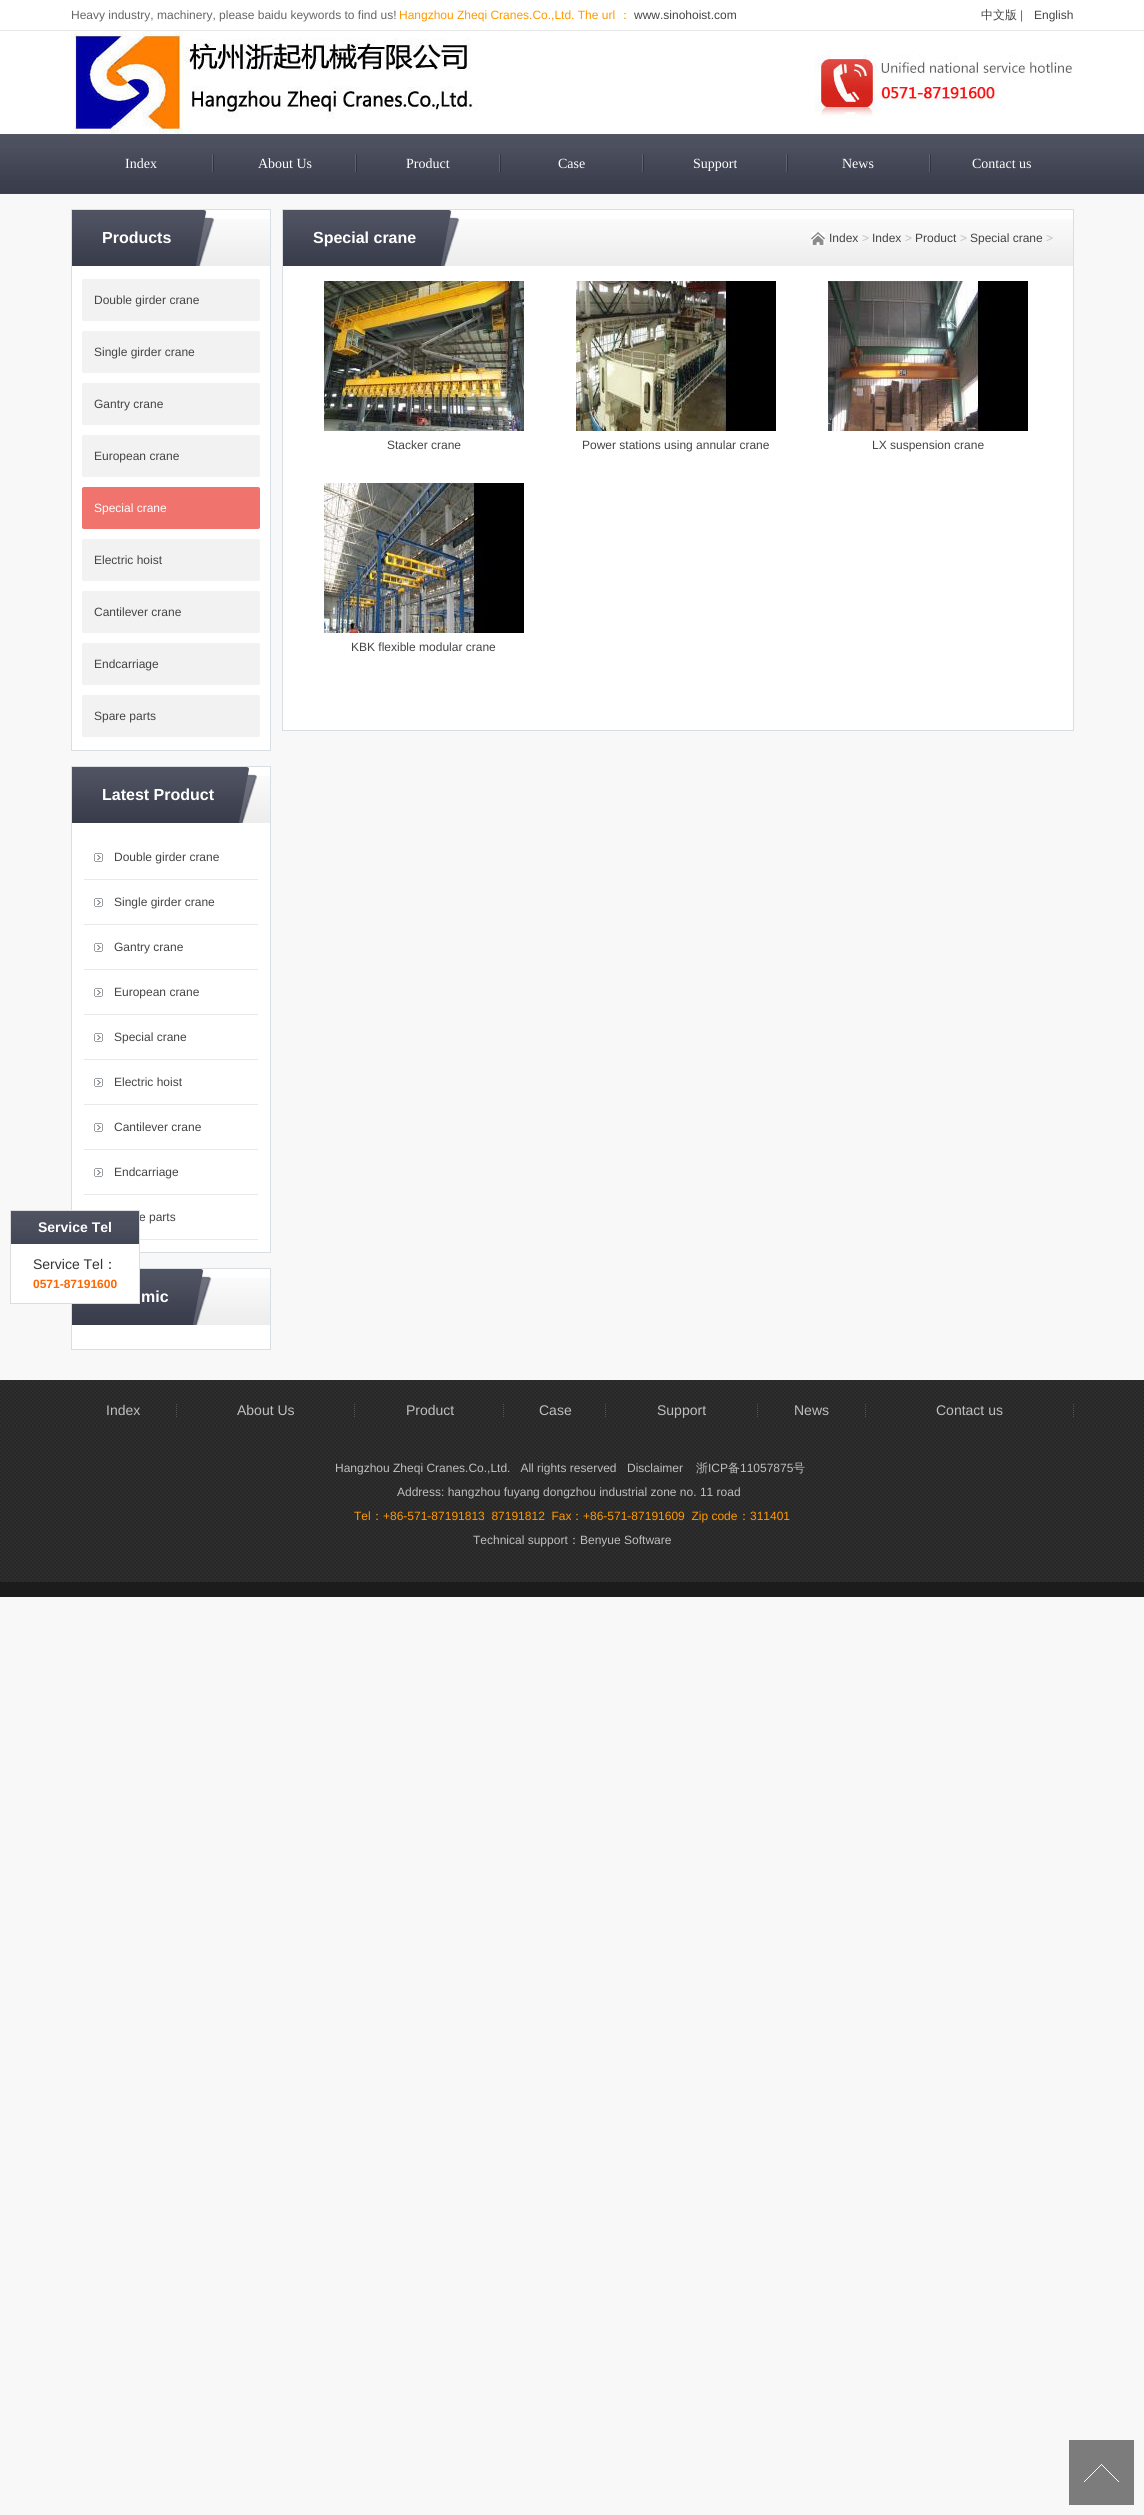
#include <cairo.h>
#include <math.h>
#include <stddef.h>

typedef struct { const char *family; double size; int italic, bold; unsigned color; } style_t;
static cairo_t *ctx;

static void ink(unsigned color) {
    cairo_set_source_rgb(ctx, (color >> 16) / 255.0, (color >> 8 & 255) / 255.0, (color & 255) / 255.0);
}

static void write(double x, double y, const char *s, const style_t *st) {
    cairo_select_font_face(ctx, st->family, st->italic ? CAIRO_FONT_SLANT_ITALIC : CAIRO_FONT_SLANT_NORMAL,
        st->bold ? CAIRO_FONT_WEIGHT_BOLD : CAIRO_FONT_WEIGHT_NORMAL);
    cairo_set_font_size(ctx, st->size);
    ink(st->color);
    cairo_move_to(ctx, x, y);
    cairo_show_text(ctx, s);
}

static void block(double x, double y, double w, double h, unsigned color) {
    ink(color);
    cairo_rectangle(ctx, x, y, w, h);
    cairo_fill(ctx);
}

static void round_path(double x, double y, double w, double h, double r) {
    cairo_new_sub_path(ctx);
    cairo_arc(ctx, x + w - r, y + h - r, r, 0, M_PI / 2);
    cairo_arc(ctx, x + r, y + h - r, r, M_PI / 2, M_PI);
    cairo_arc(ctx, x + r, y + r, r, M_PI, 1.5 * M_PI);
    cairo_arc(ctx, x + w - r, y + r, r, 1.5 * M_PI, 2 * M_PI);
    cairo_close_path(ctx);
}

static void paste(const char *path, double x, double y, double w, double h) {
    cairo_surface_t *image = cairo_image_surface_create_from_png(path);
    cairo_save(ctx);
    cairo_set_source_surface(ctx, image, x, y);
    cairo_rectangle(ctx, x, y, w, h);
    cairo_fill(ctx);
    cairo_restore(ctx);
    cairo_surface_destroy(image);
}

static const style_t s1 = {"Liberation Sans", 12, 0, 0, 0x666666};
static const style_t s2 = {"Liberation Sans", 12, 0, 0, 0xff9900};
static const style_t s3 = {"WenQuanYi Zen Hei Medium", 12, 0, 0, 0xff9900};
static const style_t s4 = {"Liberation Sans", 12, 0, 0, 0x444444};
static const style_t s5 = {"WenQuanYi Zen Hei Medium", 12, 0, 0, 0x444444};
static const style_t s6 = {"Liberation Serif", 14, 0, 0, 0xffffff};
static const style_t s7 = {"Liberation Sans", 14, 0, 1, 0xffffff};
static const style_t s8 = {"Liberation Sans", 14, 0, 0, 0x333333};
static const style_t s9 = {"WenQuanYi Zen Hei Medium", 14, 0, 0, 0x333333};
static const style_t s10 = {"Liberation Sans", 12, 0, 1, 0xff6600};
static const style_t s11 = {"Liberation Sans", 16, 0, 1, 0xffffff};
static const style_t s12 = {"Liberation Sans", 12, 0, 0, 0xffffff};
static const style_t s13 = {"Liberation Sans", 12, 0, 0, 0xbfbfbf};
static const style_t s14 = {"Liberation Sans", 14, 0, 0, 0xbfbfbf};
static const style_t s15 = {"WenQuanYi Zen Hei Medium", 12, 0, 0, 0xbfbfbf};

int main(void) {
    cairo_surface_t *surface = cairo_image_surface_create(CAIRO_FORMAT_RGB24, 1144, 2515);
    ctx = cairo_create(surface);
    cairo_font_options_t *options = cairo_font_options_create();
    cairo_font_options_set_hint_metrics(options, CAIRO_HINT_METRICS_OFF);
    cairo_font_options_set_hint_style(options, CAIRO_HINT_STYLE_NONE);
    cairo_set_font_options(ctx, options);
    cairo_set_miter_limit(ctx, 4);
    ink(0xf8f8f8);
    cairo_paint(ctx);
    block(0, 0, 1144, 30, 0xffffff);
    block(0, 30, 1144, 1, 0xe6e6e6);
    write(71, 19, "Heavy industry, machinery, please baidu keywords to find us!", &s1);
    write(399, 19, "Hangzhou Zheqi Cranes.Co.,Ltd. The url", &s2);
    write(619, 19, "：", &s3);
    write(634, 19, "www.sinohoist.com", &s4);
    write(981, 19, "中文版", &s5);
    write(1020, 19, "|", &s1);
    write(1034, 19, "English", &s4);
    block(0, 31, 1144, 103, 0xffffff);
    paste("pic1.png", 71, 31, 1003, 103);
    paste("pic2.png", 0, 134, 1144, 60);
    write(125, 168, "Index", &s6);
    paste("pic3.png", 212, 154, 2, 18);
    write(258, 168, "About Us", &s6);
    paste("pic3.png", 355, 154, 2, 18);
    write(406, 168, "Product", &s6);
    paste("pic3.png", 499, 154, 2, 18);
    write(558, 168, "Case", &s6);
    paste("pic3.png", 642, 154, 2, 18);
    write(693, 168, "Support", &s6);
    paste("pic3.png", 786, 154, 2, 18);
    write(842, 168, "News", &s6);
    paste("pic3.png", 929, 154, 2, 18);
    write(972, 168, "Contact us", &s6);
    cairo_rectangle(ctx, 71.5, 766.5, 199, 486);
    cairo_fill_preserve(ctx);
    ink(0xd9dee2);
    cairo_set_line_width(ctx, 1);
    cairo_stroke(ctx);
    ink(0xffffff);
    cairo_rectangle(ctx, 71.5, 1268.5, 199, 81);
    cairo_fill_preserve(ctx);
    ink(0xd9dee2);
    cairo_stroke(ctx);
    paste("pic10.png", 192, 1278, 78, 47);
    paste("pic11.png", 72, 1269, 140, 56);
    block(11, 1244, 128, 59, 0xffffff);
    paste("pic4.png", 11, 1211, 128, 33);
    block(10, 1210, 130, 1, 0xdddddd);
    write(139, 1221, "e parts", &s4);
    block(139, 1210, 1, 94, 0xdddddd);
    block(10, 1210, 1, 34, 0xdddddd);
    write(38, 1232, "Service Tel", &s7);
    block(10, 1303, 130, 1, 0xdddddd);
    block(10, 1244, 1, 60, 0xdddddd);
    write(33, 1269, "Service Tel", &s8);
    write(103, 1269, "：", &s9);
    write(33, 1288, "0571-87191600", &s10);
    ink(0xffffff);
    cairo_rectangle(ctx, 71.5, 209.5, 199, 541);
    cairo_fill_preserve(ctx);
    ink(0xd9dee2);
    cairo_stroke(ctx);
    paste("pic5.png", 195, 219, 75, 47);
    paste("pic6.png", 72, 210, 143, 56);
    write(102, 243, "Products", &s11);
    ink(0xf2f2f2);
    round_path(82, 279, 178, 42, 2);
    cairo_fill(ctx);
    write(94, 304, "Double girder crane", &s4);
    ink(0xf2f2f2);
    round_path(82, 331, 178, 42, 2);
    cairo_fill(ctx);
    write(94, 356, "Single girder crane", &s4);
    ink(0xf2f2f2);
    round_path(82, 383, 178, 42, 2);
    cairo_fill(ctx);
    write(94, 408, "Gantry crane", &s4);
    ink(0xf2f2f2);
    round_path(82, 435, 178, 42, 2);
    cairo_fill(ctx);
    write(94, 460, "European crane", &s4);
    ink(0xf0736d);
    round_path(82, 487, 178, 42, 2);
    cairo_fill(ctx);
    write(94, 512, "Special crane", &s12);
    ink(0xf2f2f2);
    round_path(82, 539, 178, 42, 2);
    cairo_fill(ctx);
    write(94, 564, "Electric hoist", &s4);
    ink(0xf2f2f2);
    round_path(82, 591, 178, 42, 2);
    cairo_fill(ctx);
    write(94, 616, "Cantilever crane", &s4);
    ink(0xf2f2f2);
    round_path(82, 643, 178, 42, 2);
    cairo_fill(ctx);
    write(94, 668, "Endcarriage", &s4);
    ink(0xf2f2f2);
    round_path(82, 695, 178, 42, 2);
    cairo_fill(ctx);
    write(94, 720, "Spare parts", &s4);
    paste("pic7.png", 238, 776, 32, 47);
    paste("pic8.png", 72, 767, 185, 56);
    write(102, 800, "Latest Product", &s11);
    paste("pic9.png", 94, 853, 9, 9);
    block(84, 879, 174, 1, 0xe9e9e9);
    write(114, 861, "Double girder crane", &s4);
    paste("pic9.png", 94, 898, 9, 9);
    block(84, 924, 174, 1, 0xe9e9e9);
    write(114, 906, "Single girder crane", &s4);
    paste("pic9.png", 94, 943, 9, 9);
    block(84, 969, 174, 1, 0xe9e9e9);
    write(114, 951, "Gantry crane", &s4);
    paste("pic9.png", 94, 988, 9, 9);
    block(84, 1014, 174, 1, 0xe9e9e9);
    write(114, 996, "European crane", &s4);
    paste("pic9.png", 94, 1033, 9, 9);
    block(84, 1059, 174, 1, 0xe9e9e9);
    write(114, 1041, "Special crane", &s4);
    paste("pic9.png", 94, 1078, 9, 9);
    block(84, 1104, 174, 1, 0xe9e9e9);
    write(114, 1086, "Electric hoist", &s4);
    paste("pic9.png", 94, 1123, 9, 9);
    block(84, 1149, 174, 1, 0xe9e9e9);
    write(114, 1131, "Cantilever crane", &s4);
    paste("pic9.png", 94, 1168, 9, 9);
    block(84, 1194, 174, 1, 0xe9e9e9);
    write(114, 1176, "Endcarriage", &s4);
    block(140, 1239, 118, 1, 0xe9e9e9);
    write(141, 1302, "mic", &s11);
    cairo_rectangle(ctx, 282.5, 209.5, 791, 521);
    cairo_fill_preserve(ctx);
    ink(0xd9dee2);
    cairo_stroke(ctx);
    paste("pic12.png", 440, 219, 633, 47);
    paste("pic13.png", 283, 210, 177, 56);
    write(313, 243, "Special crane", &s11);
    paste("pic14.png", 324, 281, 200, 150);
    write(387, 449, "Stacker crane", &s4);
    paste("pic15.png", 576, 281, 200, 150);
    write(582, 449, "Power stations using annular crane", &s4);
    paste("pic16.png", 828, 281, 200, 150);
    write(872, 449, "LX suspension crane", &s4);
    paste("pic17.png", 324, 483, 200, 150);
    write(351, 651, "KBK flexible modular crane", &s4);
    paste("pic18.png", 1069, 2440, 65, 65);
    paste("pic19.png", 811, 232, 14, 13);
    write(829, 242, "Index", &s4);
    write(862, 242, ">", &s13);
    write(872, 242, "Index", &s4);
    write(905, 242, ">", &s13);
    write(915, 242, "Product", &s4);
    write(960, 242, ">", &s13);
    write(970, 242, "Special crane", &s4);
    write(1046, 242, ">", &s13);
    paste("pic20.png", 0, 1380, 1144, 46);
    paste("pic21.png", 176, 1404, 1, 13);
    write(106, 1415, "Index", &s14);
    paste("pic22.png", 354, 1404, 1, 13);
    write(237, 1415, "About Us", &s14);
    paste("pic23.png", 503, 1404, 1, 13);
    write(406, 1415, "Product", &s14);
    paste("pic24.png", 605, 1404, 1, 13);
    write(539, 1415, "Case", &s14);
    paste("pic24.png", 757, 1404, 1, 13);
    write(657, 1415, "Support", &s14);
    paste("pic24.png", 865, 1404, 1, 13);
    write(794, 1415, "News", &s14);
    paste("pic24.png", 1073, 1404, 1, 13);
    write(936, 1415, "Contact us", &s14);
    paste("pic25.png", 0, 1426, 1144, 156);
    block(0, 1582, 1144, 15, 0x1c1c1c);
    write(335, 1472, "Hangzhou Zheqi Cranes.Co.,Ltd.   All rights reserved", &s13);
    write(627, 1472, "Disclaimer", &s13);
    write(696, 1472, "浙", &s15);
    write(708, 1472, "ICP", &s13);
    write(728, 1472, "备", &s15);
    write(740, 1472, "11057875", &s13);
    write(793, 1472, "号", &s15);
    write(397, 1496, "Address: hangzhou fuyang dongzhou industrial zone no. 11 road", &s13);
    write(354, 1520, "Tel", &s2);
    write(371, 1520, "：", &s3);
    write(383, 1520, "+86-571-87191813  87191812  Fax", &s2);
    write(571, 1520, "：", &s3);
    write(583, 1520, "+86-571-87191609  Zip code", &s2);
    write(738, 1520, "：", &s3);
    write(750, 1520, "311401", &s2);
    write(473, 1544, "Technical support", &s13);
    write(568, 1544, "：", &s15);
    write(580, 1544, "Benyue Software", &s13);
    cairo_surface_write_to_png(surface, "screenshot.png");
    cairo_font_options_destroy(options);
    cairo_destroy(ctx);
    cairo_surface_destroy(surface);
    return 0;
}
